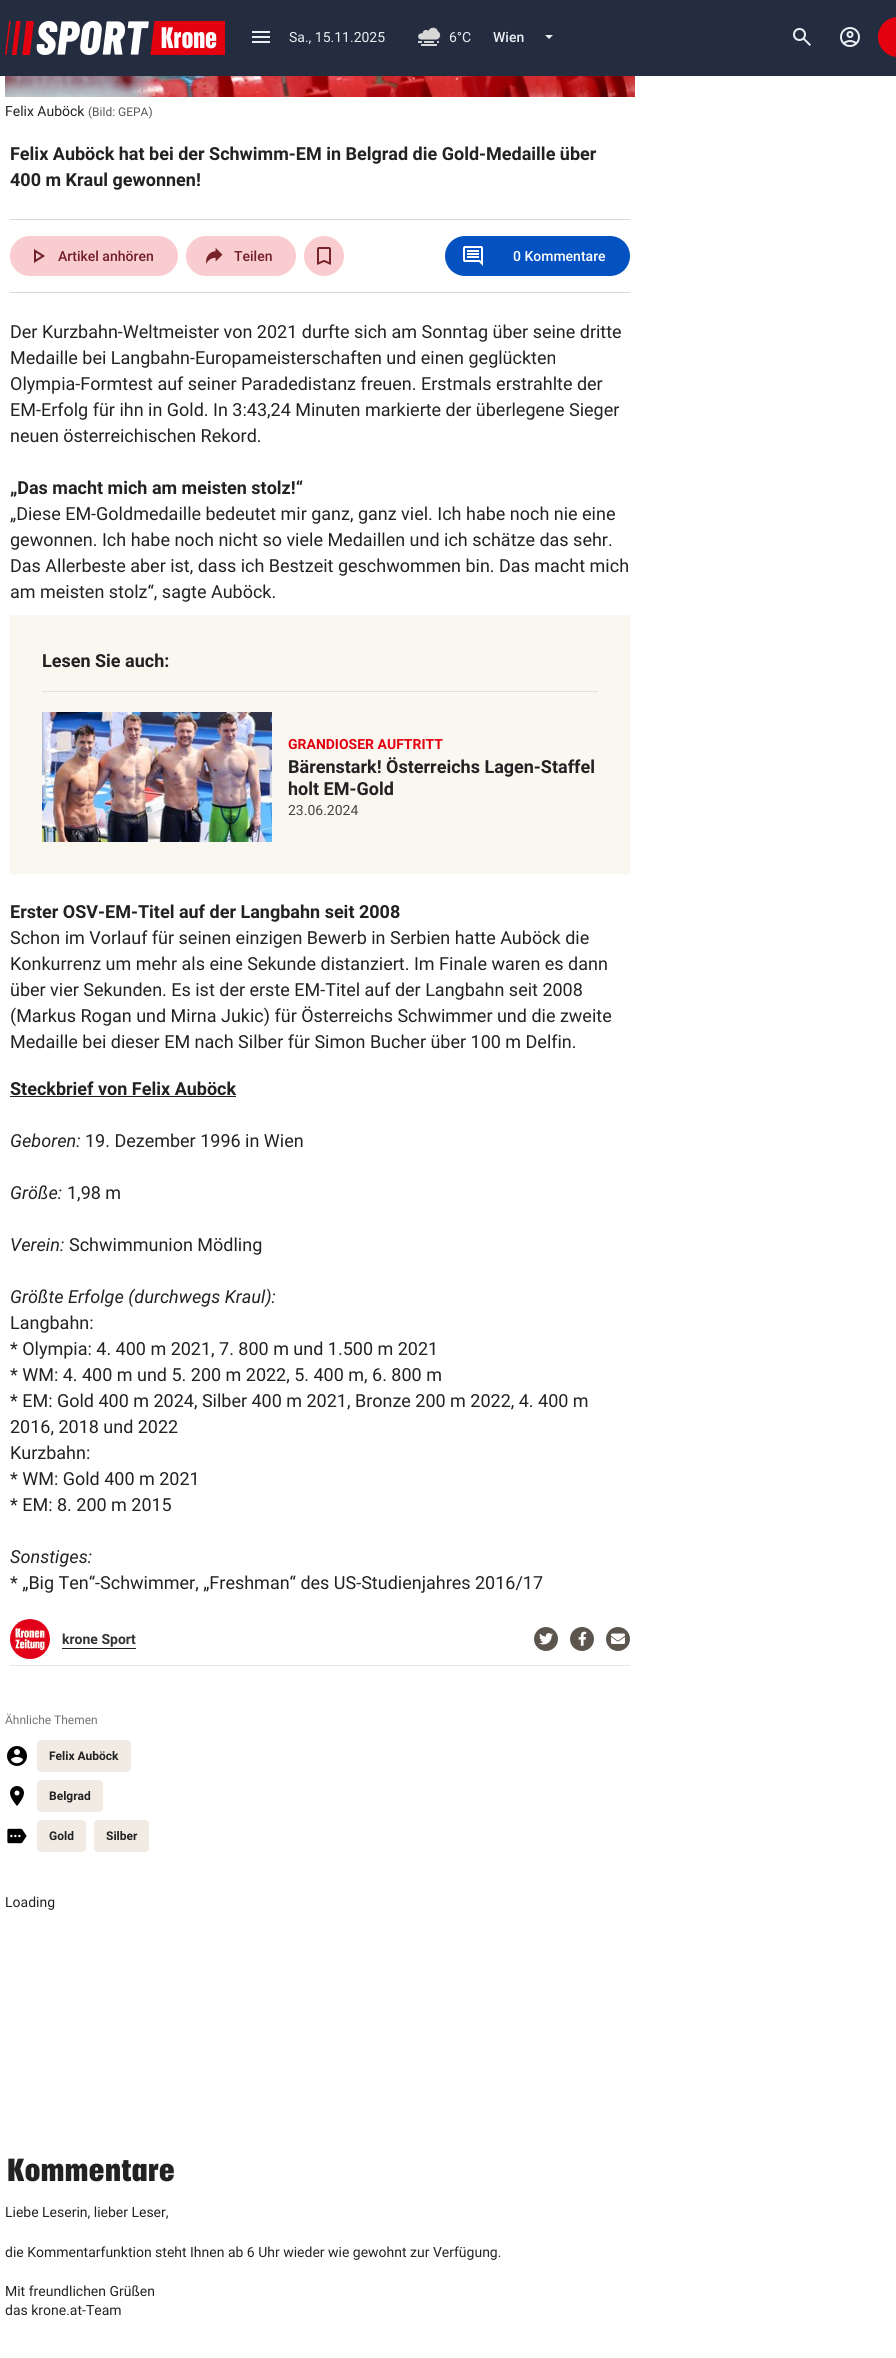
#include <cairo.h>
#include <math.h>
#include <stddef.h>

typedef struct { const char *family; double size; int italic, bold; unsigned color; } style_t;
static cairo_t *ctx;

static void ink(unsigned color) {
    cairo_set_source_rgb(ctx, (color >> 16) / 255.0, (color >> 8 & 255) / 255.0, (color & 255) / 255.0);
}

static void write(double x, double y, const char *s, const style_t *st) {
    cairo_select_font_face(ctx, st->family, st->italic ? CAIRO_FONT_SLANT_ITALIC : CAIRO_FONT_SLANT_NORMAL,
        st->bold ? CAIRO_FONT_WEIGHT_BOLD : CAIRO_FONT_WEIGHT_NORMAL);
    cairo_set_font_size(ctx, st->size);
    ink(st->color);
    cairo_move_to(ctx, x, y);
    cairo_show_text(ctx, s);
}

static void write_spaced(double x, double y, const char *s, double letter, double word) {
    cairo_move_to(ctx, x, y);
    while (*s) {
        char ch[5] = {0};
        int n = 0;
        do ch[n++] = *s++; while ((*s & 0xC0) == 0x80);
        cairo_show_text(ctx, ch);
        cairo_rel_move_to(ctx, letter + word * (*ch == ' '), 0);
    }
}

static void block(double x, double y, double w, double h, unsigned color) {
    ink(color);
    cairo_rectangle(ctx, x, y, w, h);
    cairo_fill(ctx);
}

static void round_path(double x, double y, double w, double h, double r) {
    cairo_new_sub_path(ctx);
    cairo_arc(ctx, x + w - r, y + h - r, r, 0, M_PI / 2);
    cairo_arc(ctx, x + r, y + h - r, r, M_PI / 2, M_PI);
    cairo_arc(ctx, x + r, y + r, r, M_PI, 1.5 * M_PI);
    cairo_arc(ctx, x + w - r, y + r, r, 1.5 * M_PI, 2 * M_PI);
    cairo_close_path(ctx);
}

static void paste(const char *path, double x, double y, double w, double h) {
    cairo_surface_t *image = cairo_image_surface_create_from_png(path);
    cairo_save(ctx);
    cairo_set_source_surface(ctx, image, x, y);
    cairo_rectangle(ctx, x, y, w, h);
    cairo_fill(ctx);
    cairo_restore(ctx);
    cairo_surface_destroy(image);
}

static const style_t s1 = {"Roboto", 14, 0, 0, 0xebeef4};
static const style_t s2 = {"Roboto Medium", 14, 0, 0, 0xebeef4};
static const style_t s3 = {"Roboto", 14, 0, 0, 0x222222};
static const style_t s4 = {"Roboto", 12, 0, 0, 0x555555};
static const style_t s5 = {"Roboto", 18, 0, 1, 0x222222};
static const style_t s6 = {"Roboto Medium", 14, 0, 0, 0x731f28};
static const style_t s7 = {"Roboto Medium", 14, 0, 0, 0xffffff};
static const style_t s8 = {"Roboto", 18, 0, 0, 0x222222};
static const style_t s9 = {"Roboto", 14, 0, 1, 0xe3000f};
static const style_t s10 = {"Roboto", 14, 0, 0, 0x444444};
static const style_t s11 = {"Roboto", 18, 1, 0, 0x222222};
static const style_t s12 = {"Roboto", 14, 0, 1, 0x333333};
static const style_t s13 = {"Roboto", 12, 0, 0, 0x737373};
static const style_t s14 = {"Roboto", 12, 0, 1, 0x222222};

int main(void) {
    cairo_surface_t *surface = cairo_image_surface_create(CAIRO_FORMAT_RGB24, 896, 2358);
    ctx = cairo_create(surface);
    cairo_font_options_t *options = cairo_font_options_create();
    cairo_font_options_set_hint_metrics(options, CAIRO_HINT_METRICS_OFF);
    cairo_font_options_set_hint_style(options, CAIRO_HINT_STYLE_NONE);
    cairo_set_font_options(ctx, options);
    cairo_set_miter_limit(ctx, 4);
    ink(0xffffff);
    cairo_paint(ctx);
    block(0, 0, 896, 76, 0x242d40);
    paste("pic1.png", 5, 21, 220, 34);
    paste("pic2.png", 252, 31, 18, 12);
    write(289, 42, "Sa., 15.11.2025", &s1);
    paste("pic3.png", 418, 27, 23, 19);
    write(449, 42, "6°C", &s1);
    write(493, 42, "Wien", &s2);
    cairo_new_path(ctx);
    cairo_move_to(ctx, 545, 35);
    cairo_line_to(ctx, 553, 35);
    cairo_line_to(ctx, 549, 39);
    cairo_close_path(ctx);
    cairo_fill(ctx);
    paste("pic4.png", 793, 28, 18, 18);
    paste("pic5.png", 840, 27, 20, 20);
    ink(0xe3000f);
    round_path(878, 17, 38, 40, 20);
    cairo_fill(ctx);
    paste("pic6.png", 5, 76, 630, 21);
    write(5, 116, "Felix Auböck", &s3);
    write(88, 116, "(Bild: GEPA)", &s4);
    write(10, 160, "Felix Auböck hat bei der Schwimm-EM in Belgrad die Gold-Medaille über", &s5);
    write(10, 186, "400 m Kraul gewonnen!", &s5);
    block(10, 219, 620, 1, 0xd9d9d9);
    block(10, 292, 620, 1, 0xd9d9d9);
    ink(0xf9cccf);
    round_path(10, 236, 168, 40, 20);
    cairo_fill(ctx);
    paste("pic7.png", 34, 249, 11, 14);
    write(58, 261, "Artikel anhören", &s6);
    ink(0xf9cccf);
    round_path(186, 236, 110, 40, 20);
    cairo_fill(ctx);
    paste("pic8.png", 206, 248, 17, 16);
    write(234, 261, "Teilen", &s6);
    ink(0xf9cccf);
    cairo_new_path(ctx);
    cairo_arc(ctx, 324, 256, 20, 0, 2 * M_PI);
    cairo_fill(ctx);
    paste("pic9.png", 317, 247, 14, 18);
    ink(0x0452c2);
    round_path(445, 236, 185, 40, 20);
    cairo_fill(ctx);
    paste("pic10.png", 463, 246, 20, 20);
    write(513, 261, "0 Kommentare", &s7);
    write(10, 338, "Der Kurzbahn-Weltmeister von 2021 durfte sich am Sonntag über seine dritte", &s8);
    write(10, 364, "Medaille bei Langbahn-Europameisterschaften und einen geglückten", &s8);
    write(10, 390, "Olympia-Formtest auf seiner Paradedistanz freuen. Erstmals erstrahlte der", &s8);
    write(10, 416, "EM-Erfolg für ihn in Gold. In 3:43,24 Minuten markierte der überlegene Sieger", &s8);
    write(10, 442, "neuen österreichischen Rekord.", &s8);
    write(10, 494, "„Das macht mich am meisten stolz!“", &s5);
    write(10, 520, "„Diese EM-Goldmedaille bedeutet mir ganz, ganz viel. Ich habe noch nie eine", &s8);
    write(10, 546, "gewonnen. Ich habe noch nicht so viele Medaillen und ich schätze das sehr.", &s8);
    write(10, 572, "Das Allerbeste aber ist, dass ich Bestzeit geschwommen bin. Das macht mich", &s8);
    write(10, 598, "am meisten stolz“, sagte Auböck.", &s8);
    block(10, 615, 620, 259, 0xfaf6f0);
    block(42, 691, 556, 1, 0xe4e1dc);
    write(42, 667, "Lesen Sie auch:", &s5);
    paste("pic11.png", 42, 712, 230, 130);
    write(288, 749, "GRANDIOSER AUFTRITT", &s9);
    write(288, 773, "Bärenstark! Österreichs Lagen-Staffel", &s5);
    write(288, 795, "holt EM-Gold", &s5);
    write(288, 815, "23.06.2024", &s10);
    write(10, 918, "Erster OSV-EM-Titel auf der Langbahn seit 2008", &s5);
    write(10, 944, "Schon im Vorlauf für seinen einzigen Bewerb in Serbien hatte Auböck die", &s8);
    write(10, 970, "Konkurrenz um mehr als eine Sekunde distanziert. Im Finale waren es dann", &s8);
    write(10, 996, "über vier Sekunden. Es ist der erste EM-Titel auf der Langbahn seit 2008", &s8);
    write(10, 1022, "(Markus Rogan und Mirna Jukic) für Österreichs Schwimmer und die zweite", &s8);
    write(10, 1048, "Medaille bei dieser EM nach Silber für Simon Bucher über 100 m Delfin.", &s8);
    write(10, 1095, "Steckbrief von Felix Auböck", &s5);
    block(10, 1096, 226, 1, 0x222222);
    write(10, 1147, "Geboren:", &s11);
    write(85, 1147, "19. Dezember 1996 in Wien", &s8);
    write(10, 1199, "Größe:", &s11);
    write(67, 1199, "1,98 m", &s8);
    write(10, 1251, "Verein:", &s11);
    write(69, 1251, "Schwimmunion Mödling", &s8);
    write(10, 1303, "Größte Erfolge (durchwegs Kraul):", &s11);
    write(10, 1329, "Langbahn:", &s8);
    write(10, 1355, "* Olympia: 4. 400 m 2021, 7. 800 m und 1.500 m 2021", &s8);
    write(10, 1381, "* WM: 4. 400 m und 5. 200 m 2022, 5. 400 m, 6. 800 m", &s8);
    write(10, 1407, "* EM: Gold 400 m 2024, Silber 400 m 2021, Bronze 200 m 2022, 4. 400 m", &s8);
    write(10, 1433, "2016, 2018 und 2022", &s8);
    write(10, 1459, "Kurzbahn:", &s8);
    write(10, 1485, "* WM: Gold 400 m 2021", &s8);
    write(10, 1511, "* EM: 8. 200 m 2015", &s8);
    write(10, 1563, "Sonstiges:", &s11);
    write(10, 1589, "* „Big Ten“-Schwimmer, „Freshman“ des US-Studienjahres 2016/17", &s8);
    block(10, 1665, 620, 1, 0xe7e7e7);
    paste("pic12.png", 10, 1619, 40, 40);
    block(62, 1648, 74, 1, 0x222222);
    write(62, 1644, "krone Sport", &s12);
    ink(0x5c554e);
    cairo_new_path(ctx);
    cairo_arc(ctx, 546, 1639, 12, 0, 2 * M_PI);
    cairo_fill(ctx);
    paste("pic13.png", 539, 1633, 14, 12);
    cairo_arc(ctx, 582, 1639, 12, 0, 2 * M_PI);
    cairo_fill(ctx);
    paste("pic14.png", 578, 1631, 9, 15);
    cairo_arc(ctx, 618, 1639, 12, 0, 2 * M_PI);
    cairo_fill(ctx);
    paste("pic15.png", 611, 1633, 14, 11);
    write(5, 1724, "Ähnliche Themen", &s13);
    paste("pic16.png", 7, 1746, 20, 20);
    ink(0xf1ebe4);
    round_path(37, 1740, 94, 32, 4);
    cairo_fill(ctx);
    write(49, 1760, "Felix Auböck", &s14);
    paste("pic17.png", 10, 1786, 14, 20);
    ink(0xf1ebe4);
    round_path(37, 1780, 66, 32, 4);
    cairo_fill(ctx);
    write(49, 1800, "Belgrad", &s14);
    paste("pic18.png", 7, 1828, 20, 16);
    ink(0xf1ebe4);
    round_path(37, 1820, 49, 32, 4);
    cairo_fill(ctx);
    write(49, 1840, "Gold", &s14);
    ink(0xf1ebe4);
    round_path(94, 1820, 55, 32, 4);
    cairo_fill(ctx);
    write(106, 1840, "Silber", &s14);
    write(5, 1907, "Loading", &s3);
    cairo_select_font_face(ctx, "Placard", CAIRO_FONT_SLANT_NORMAL, CAIRO_FONT_WEIGHT_BOLD);
    cairo_set_font_size(ctx, 31);
    write_spaced(7, 2181, "Kommentare", 0.5, 0);
    write(5, 2217, "Liebe Leserin, lieber Leser,", &s3);
    write(5, 2257, "die Kommentarfunktion steht Ihnen ab 6 Uhr wieder wie gewohnt zur Verfügung.", &s3);
    write(5, 2296, "Mit freundlichen Grüßen", &s3);
    write(5, 2315, "das krone.at-Team", &s3);
    cairo_surface_write_to_png(surface, "screenshot.png");
    cairo_font_options_destroy(options);
    cairo_destroy(ctx);
    cairo_surface_destroy(surface);
    return 0;
}
